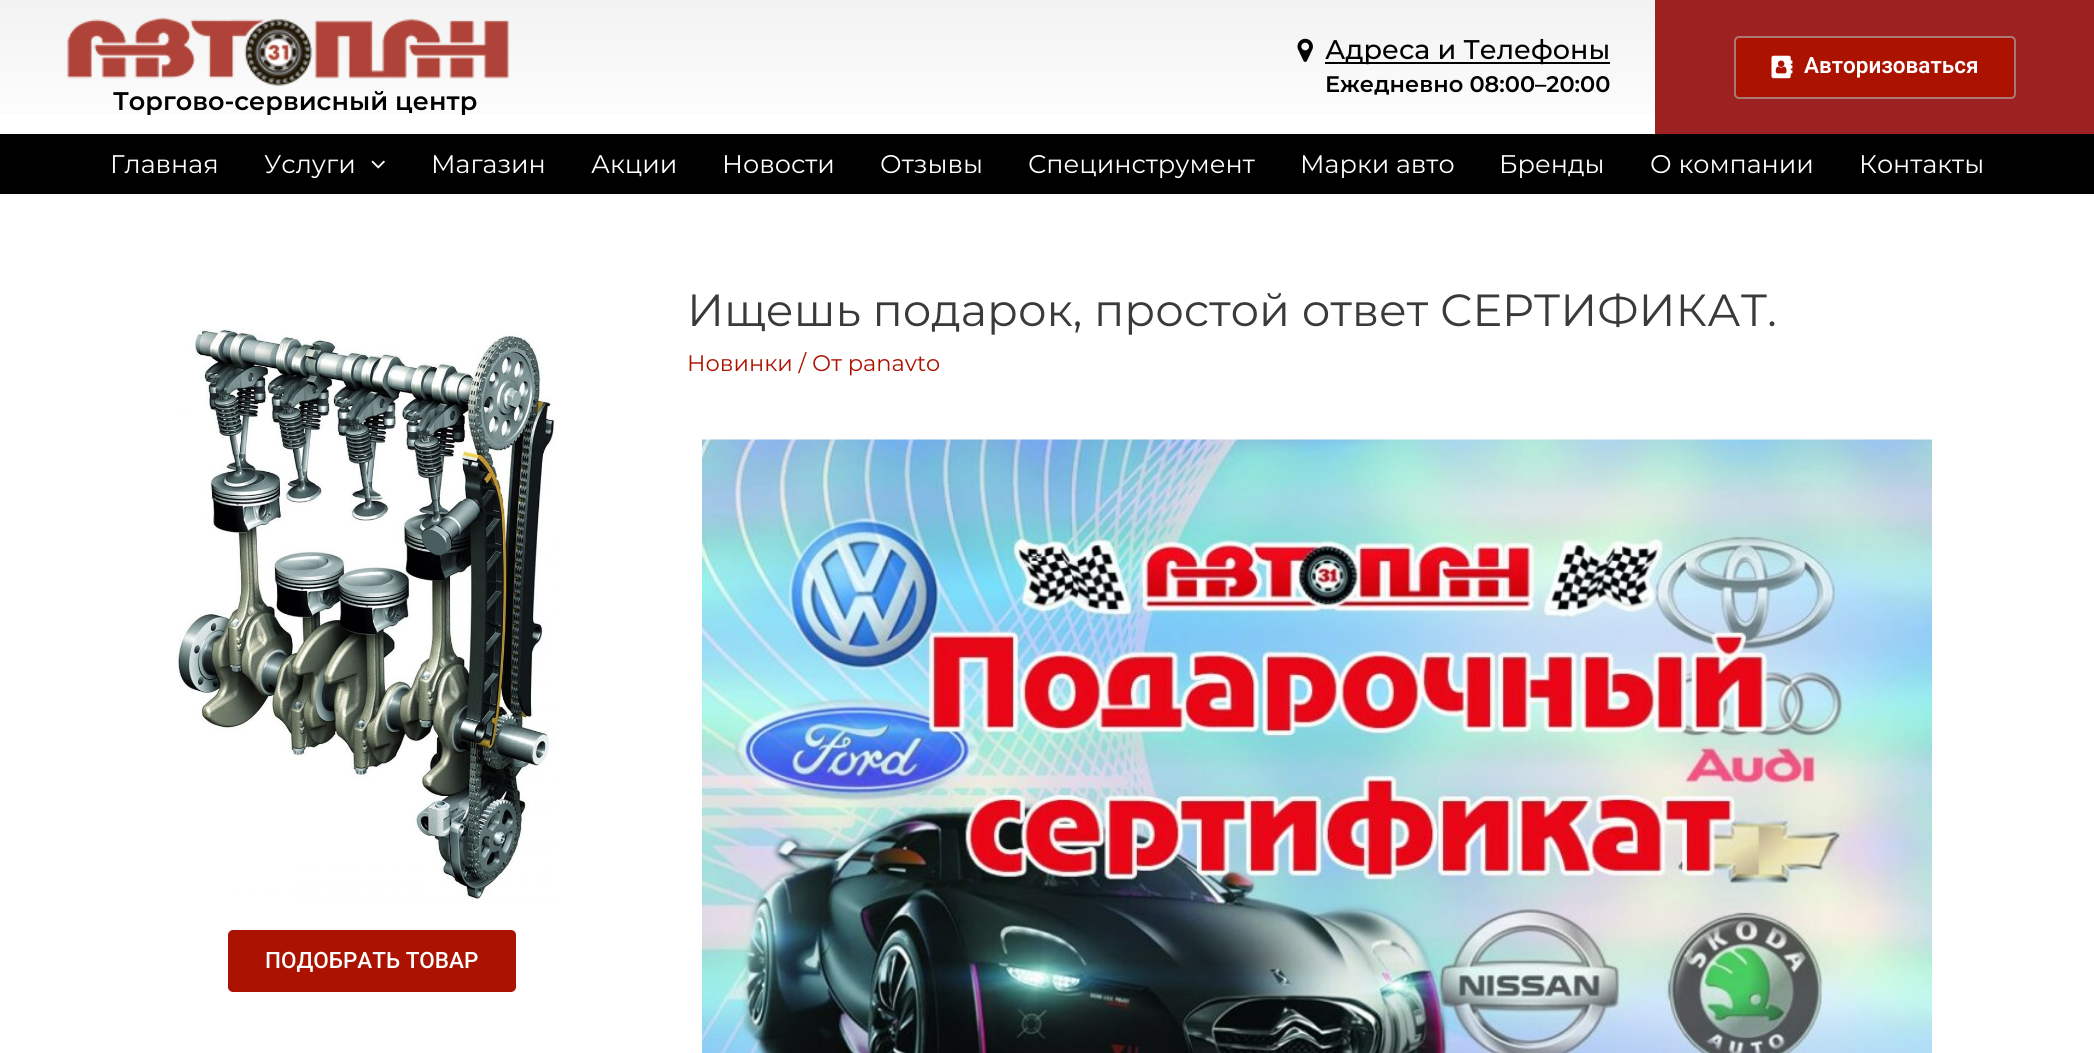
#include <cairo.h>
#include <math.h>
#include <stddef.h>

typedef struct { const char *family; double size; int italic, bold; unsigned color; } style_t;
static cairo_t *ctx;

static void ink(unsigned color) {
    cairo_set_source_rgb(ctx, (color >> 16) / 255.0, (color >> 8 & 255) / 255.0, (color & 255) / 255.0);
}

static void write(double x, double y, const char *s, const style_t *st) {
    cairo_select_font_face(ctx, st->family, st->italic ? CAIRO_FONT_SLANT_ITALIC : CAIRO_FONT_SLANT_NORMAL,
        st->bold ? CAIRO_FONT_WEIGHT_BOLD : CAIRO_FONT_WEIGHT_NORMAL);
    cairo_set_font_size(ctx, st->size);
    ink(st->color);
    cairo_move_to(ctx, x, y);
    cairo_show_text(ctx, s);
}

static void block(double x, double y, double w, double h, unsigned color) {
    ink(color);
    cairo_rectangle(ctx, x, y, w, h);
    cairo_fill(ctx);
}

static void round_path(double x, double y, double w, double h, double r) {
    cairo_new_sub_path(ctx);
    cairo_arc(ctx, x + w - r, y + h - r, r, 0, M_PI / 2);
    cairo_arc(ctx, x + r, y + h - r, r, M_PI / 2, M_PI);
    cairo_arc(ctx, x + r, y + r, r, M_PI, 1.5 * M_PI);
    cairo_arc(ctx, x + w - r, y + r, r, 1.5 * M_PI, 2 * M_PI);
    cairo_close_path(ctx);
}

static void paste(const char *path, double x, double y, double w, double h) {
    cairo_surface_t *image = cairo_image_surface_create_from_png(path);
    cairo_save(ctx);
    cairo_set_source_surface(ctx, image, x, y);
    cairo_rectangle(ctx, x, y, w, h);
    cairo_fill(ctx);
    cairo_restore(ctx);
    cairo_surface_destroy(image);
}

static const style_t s1 = {"Montserrat Medium", 27, 0, 0, 0x000000};
static const style_t s2 = {"Montserrat SemiBold", 22.5, 0, 0, 0x000000};
static const style_t s3 = {"Roboto SemiBold", 22.5, 0, 0, 0xffffff};
static const style_t s4 = {"Montserrat SemiBold", 25.5, 0, 0, 0x000000};
static const style_t s5 = {"Montserrat", 25.5, 0, 0, 0xffffff};
static const style_t s6 = {"Montserrat", 45, 0, 0, 0x3a3a3a};
static const style_t s7 = {"Montserrat", 22.5, 0, 0, 0xac1200};
static const style_t s8 = {"Roboto Medium", 22.5, 0, 0, 0xffffff};

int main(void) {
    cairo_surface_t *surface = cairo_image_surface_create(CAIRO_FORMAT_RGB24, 2094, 1053);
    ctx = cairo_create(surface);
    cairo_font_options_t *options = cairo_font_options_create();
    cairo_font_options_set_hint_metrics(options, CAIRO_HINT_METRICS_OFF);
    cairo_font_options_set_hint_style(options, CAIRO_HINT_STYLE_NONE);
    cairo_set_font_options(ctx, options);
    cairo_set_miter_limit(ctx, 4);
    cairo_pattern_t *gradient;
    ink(0xffffff);
    cairo_paint(ctx);
    gradient = cairo_pattern_create_linear(1047, 0, 1047, 194);
    cairo_pattern_add_color_stop_rgba(gradient, 0, 0.949, 0.949, 0.949, 1);
    cairo_pattern_add_color_stop_rgba(gradient, 0.73, 1, 1, 1, 1);
    cairo_set_source(ctx, gradient);
    cairo_pattern_destroy(gradient);
    cairo_rectangle(ctx, 0, 0, 1655, 114);
    cairo_fill(ctx);
    paste("pic1.png", 1297, 38, 16, 24);
    block(1325, 62, 285, 2, 0x000000);
    write(1325, 59, "Адреса и Телефоны", &s1);
    write(1325, 92, "Ежедневно 08:00–20:00", &s2);
    block(1655, 0, 439, 134, 0x9e2121);
    ink(0xac1200);
    round_path(1735, 37, 280, 61, 4);
    cairo_fill_preserve(ctx);
    ink(0xaa7974);
    cairo_stroke(ctx);
    paste("pic2.png", 1771, 55, 22, 24);
    write(1804, 73, "Авторизоваться", &s3);
    paste("pic3.png", 67, 17, 442, 69);
    write(113, 110, "Торгово-сервисный центр", &s4);
    block(0, 134, 2094, 60, 0x000000);
    write(110, 173, "Главная", &s5);
    write(264, 173, "Услуги", &s5);
    paste("pic4.png", 371, 160, 14, 9);
    write(431, 173, "Магазин", &s5);
    write(591, 173, "Акции", &s5);
    write(722, 173, "Новости", &s5);
    write(880, 173, "Отзывы", &s5);
    write(1028, 173, "Специнструмент", &s5);
    write(1300, 173, "Марки авто", &s5);
    write(1499, 173, "Бренды", &s5);
    write(1650, 173, "О компании", &s5);
    write(1859, 173, "Контакты", &s5);
    write(687, 326, "Ищешь подарок, простой ответ СЕРТИФИКАТ.", &s6);
    write(687, 371, "Новинки / От panavto", &s7);
    paste("pic5.png", 702, 439, 1230, 614);
    paste("pic6.png", 176, 328, 380, 572);
    round_path(229, 931, 286, 60, 4);
    cairo_fill_preserve(ctx);
    cairo_stroke(ctx);
    write(265, 968, "ПОДОБРАТЬ ТОВАР", &s8);
    cairo_surface_write_to_png(surface, "screenshot.png");
    cairo_font_options_destroy(options);
    cairo_destroy(ctx);
    cairo_surface_destroy(surface);
    return 0;
}
